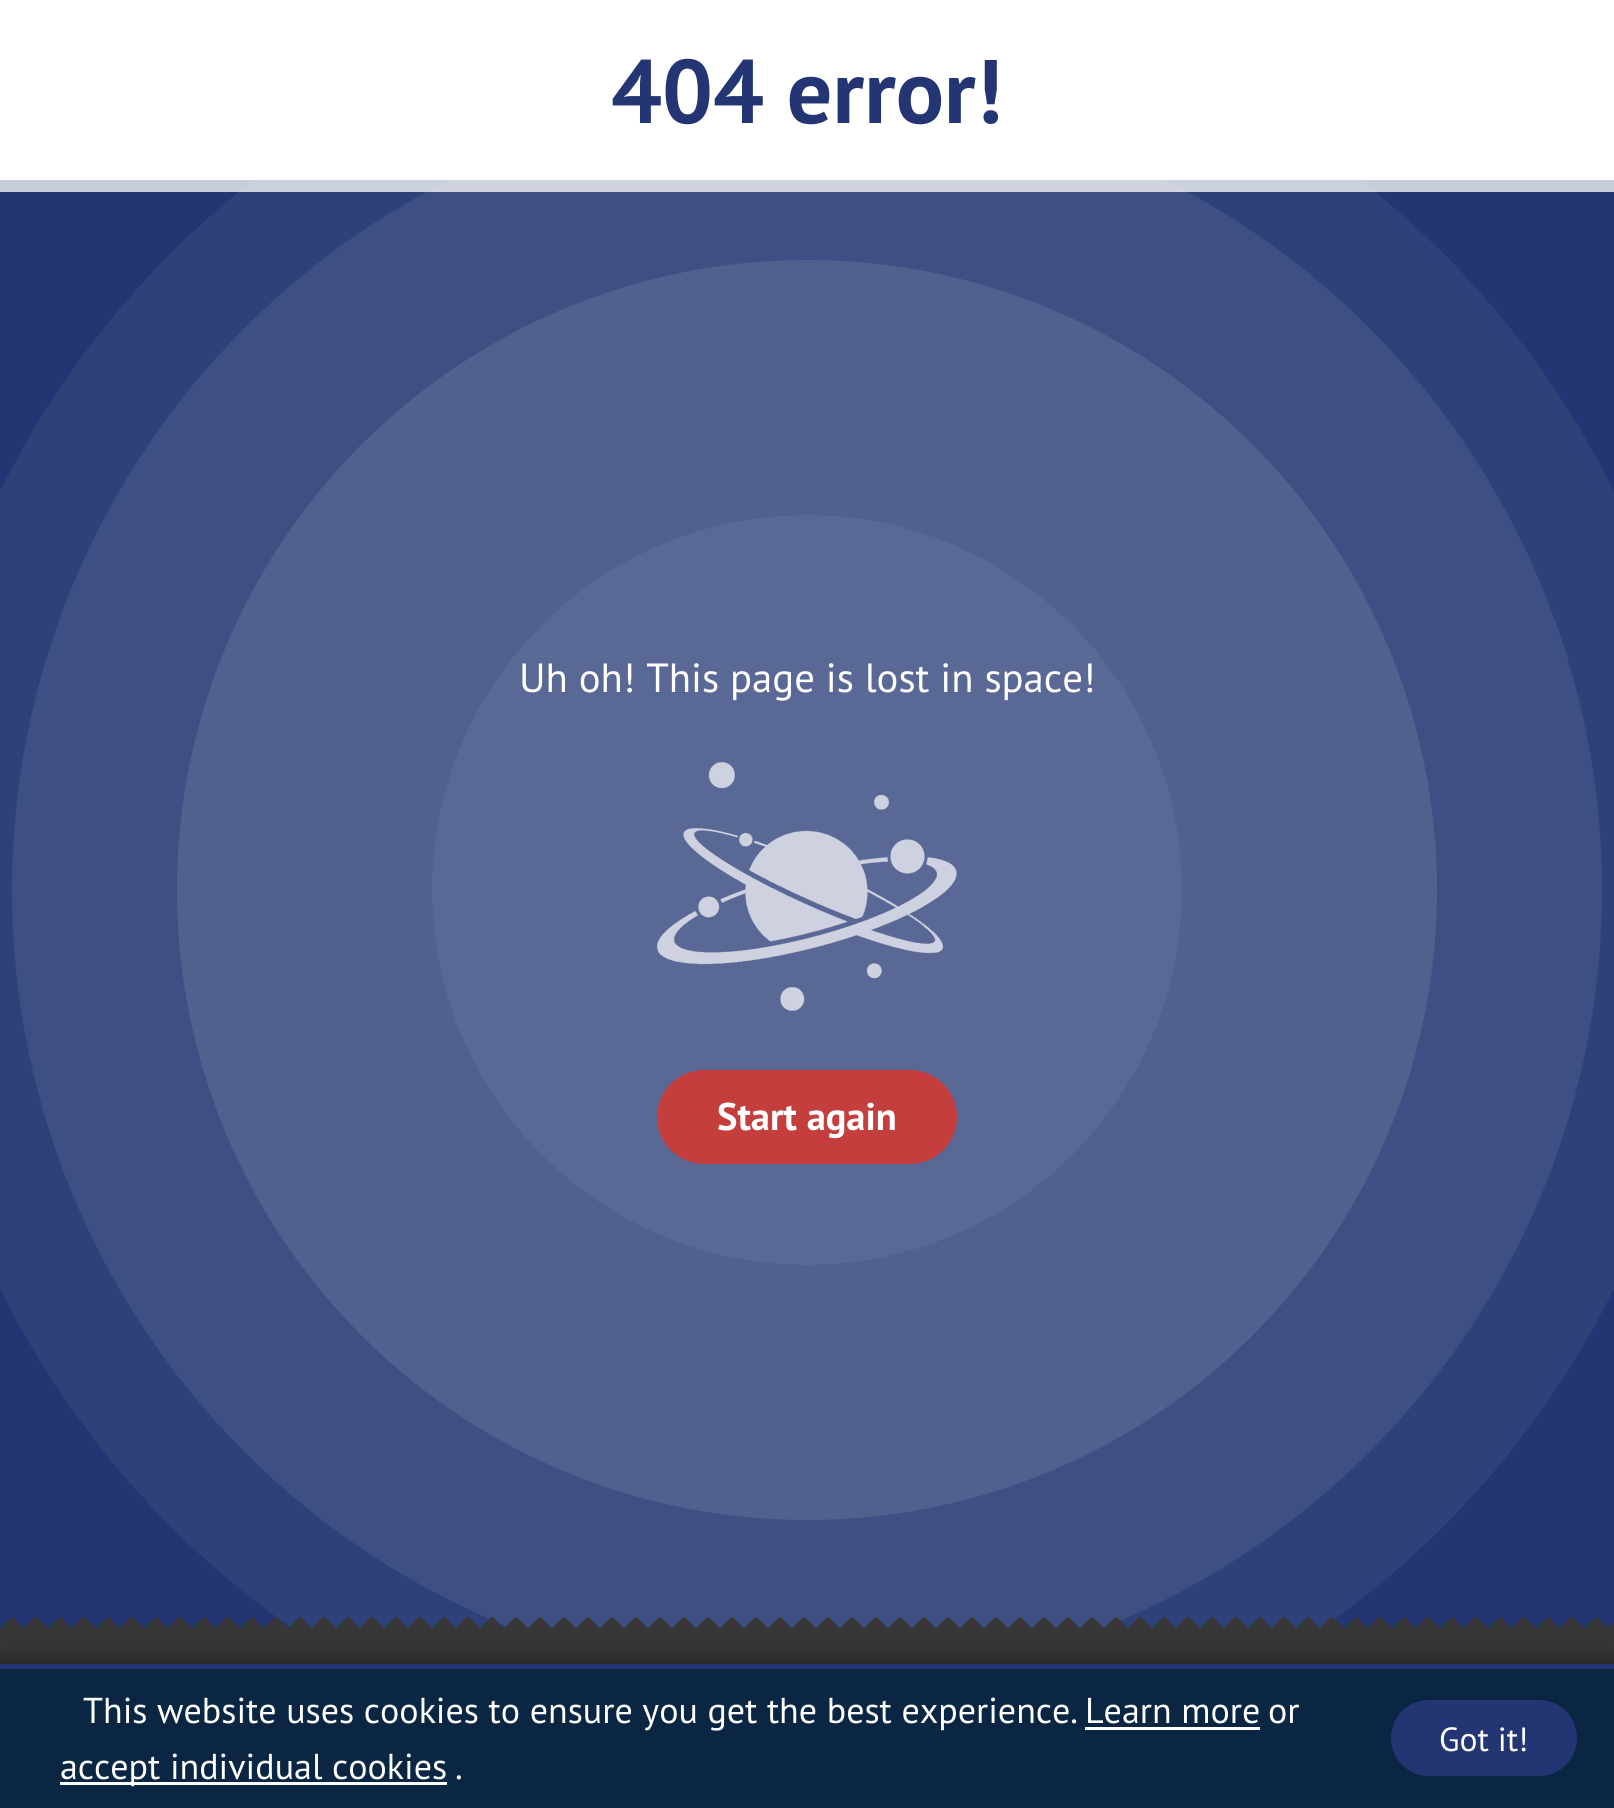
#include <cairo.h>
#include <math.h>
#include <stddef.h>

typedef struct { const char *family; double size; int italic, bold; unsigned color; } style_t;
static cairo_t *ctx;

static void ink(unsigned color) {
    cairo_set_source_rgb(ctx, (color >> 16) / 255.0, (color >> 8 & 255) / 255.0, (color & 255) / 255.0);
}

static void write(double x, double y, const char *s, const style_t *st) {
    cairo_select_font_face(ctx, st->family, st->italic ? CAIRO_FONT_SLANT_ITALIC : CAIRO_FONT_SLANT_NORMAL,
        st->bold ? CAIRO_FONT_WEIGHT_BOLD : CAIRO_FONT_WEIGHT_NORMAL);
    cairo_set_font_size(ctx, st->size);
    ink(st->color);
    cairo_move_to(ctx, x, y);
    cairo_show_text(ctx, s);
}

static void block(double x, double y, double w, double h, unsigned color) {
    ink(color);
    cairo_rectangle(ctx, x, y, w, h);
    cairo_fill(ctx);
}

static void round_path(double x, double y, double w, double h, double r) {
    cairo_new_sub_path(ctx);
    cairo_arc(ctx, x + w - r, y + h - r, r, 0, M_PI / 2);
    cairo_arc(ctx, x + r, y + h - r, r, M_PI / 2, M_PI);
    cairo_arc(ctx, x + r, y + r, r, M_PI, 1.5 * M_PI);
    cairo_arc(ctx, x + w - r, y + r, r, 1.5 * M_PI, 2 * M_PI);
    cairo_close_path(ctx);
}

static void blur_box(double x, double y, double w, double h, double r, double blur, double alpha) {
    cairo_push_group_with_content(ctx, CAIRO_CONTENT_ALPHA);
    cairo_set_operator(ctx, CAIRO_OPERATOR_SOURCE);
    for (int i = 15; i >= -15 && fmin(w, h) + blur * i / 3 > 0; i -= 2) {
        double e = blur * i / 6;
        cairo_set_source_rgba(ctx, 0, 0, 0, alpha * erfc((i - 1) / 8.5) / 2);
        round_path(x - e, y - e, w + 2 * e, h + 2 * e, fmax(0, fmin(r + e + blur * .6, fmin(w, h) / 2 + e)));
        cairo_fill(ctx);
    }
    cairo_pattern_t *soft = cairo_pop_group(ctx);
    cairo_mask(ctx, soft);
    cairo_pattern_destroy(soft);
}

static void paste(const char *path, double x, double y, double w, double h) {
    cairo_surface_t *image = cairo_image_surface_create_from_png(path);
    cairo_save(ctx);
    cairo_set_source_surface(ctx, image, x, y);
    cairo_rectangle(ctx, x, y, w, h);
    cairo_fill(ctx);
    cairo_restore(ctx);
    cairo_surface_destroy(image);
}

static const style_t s1 = {"PT Sans", 90, 0, 1, 0x233673};
static const style_t s2 = {"PT Sans", 40.75, 0, 0, 0xffffff};
static const style_t s3 = {"PT Sans", 38.5, 0, 1, 0xffffff};
static const style_t s4 = {"PT Sans", 36, 0, 0, 0xffffff};
static const style_t s5 = {"PT Sans", 33.5, 0, 0, 0xffffff};

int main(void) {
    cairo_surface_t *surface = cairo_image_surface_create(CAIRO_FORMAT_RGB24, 1614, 1808);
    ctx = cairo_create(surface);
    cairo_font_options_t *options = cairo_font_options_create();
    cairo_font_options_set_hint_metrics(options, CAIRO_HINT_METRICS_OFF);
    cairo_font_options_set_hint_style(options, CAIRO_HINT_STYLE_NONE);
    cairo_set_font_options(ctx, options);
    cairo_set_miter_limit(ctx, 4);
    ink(0x233673);
    cairo_paint(ctx);
    cairo_arc(ctx, 807, 890, 637.5, 0, 2 * M_PI);
    ink(0x2e4178);
    cairo_set_line_width(ctx, 525);
    cairo_stroke(ctx);
    cairo_arc(ctx, 807, 890, 585, 0, 2 * M_PI);
    cairo_set_source_rgba(ctx, 1, 1, 1, 0.08);
    cairo_set_line_width(ctx, 420);
    cairo_stroke(ctx);
    block(0, 0, 1614, 180, 0xffffff);
    write(611, 123, "404 error!", &s1);
    cairo_set_source_rgba(ctx, 1, 1, 1, 0.5);
    cairo_rectangle(ctx, 0, 180, 1614, 12);
    cairo_fill(ctx);
    cairo_rectangle(ctx, 0, 180, 1614, 12);
    cairo_fill(ctx);
    cairo_arc(ctx, 807, 890, 502.5, 0, 2 * M_PI);
    cairo_set_source_rgba(ctx, 1, 1, 1, 0.1);
    cairo_set_line_width(ctx, 255);
    cairo_stroke(ctx);
    cairo_set_source_rgba(ctx, 1, 1, 1, 0.25);
    cairo_arc(ctx, 807, 890, 375, 0, 2 * M_PI);
    cairo_fill(ctx);
    paste("pic1.png", 657, 762, 300, 249);
    write(519, 692, "Uh oh! This page is lost in space!", &s2);
    ink(0xc33e3c);
    round_path(657, 1070, 300, 94, 47);
    cairo_fill(ctx);
    write(717, 1130, "Start again", &s3);
    block(0, 1629, 1614, 35, 0x373737);
    paste("pic2.png", 0, 1617, 1614, 12);
    ink(0x000000);
    blur_box(0, 1664, 1614, 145, 0, 15, 0.5);
    block(0, 1669, 1614, 139, 0x0a2643);
    block(0, 1664, 1614, 5, 0x233673);
    write(83, 1723, "This website uses cookies to ensure you get the best experience.", &s4);
    write(1085, 1723, "Learn more", &s4);
    block(1085, 1727, 175, 3, 0xffffff);
    write(1268, 1723, "or", &s4);
    block(60, 1782, 387, 3, 0xffffff);
    write(60, 1779, "accept individual cookies", &s4);
    write(455, 1779, ".", &s4);
    ink(0x233673);
    round_path(1391, 1700, 186, 76, 38);
    cairo_fill(ctx);
    write(1439, 1751, "Got it!", &s5);
    cairo_surface_write_to_png(surface, "screenshot.png");
    cairo_font_options_destroy(options);
    cairo_destroy(ctx);
    cairo_surface_destroy(surface);
    return 0;
}
